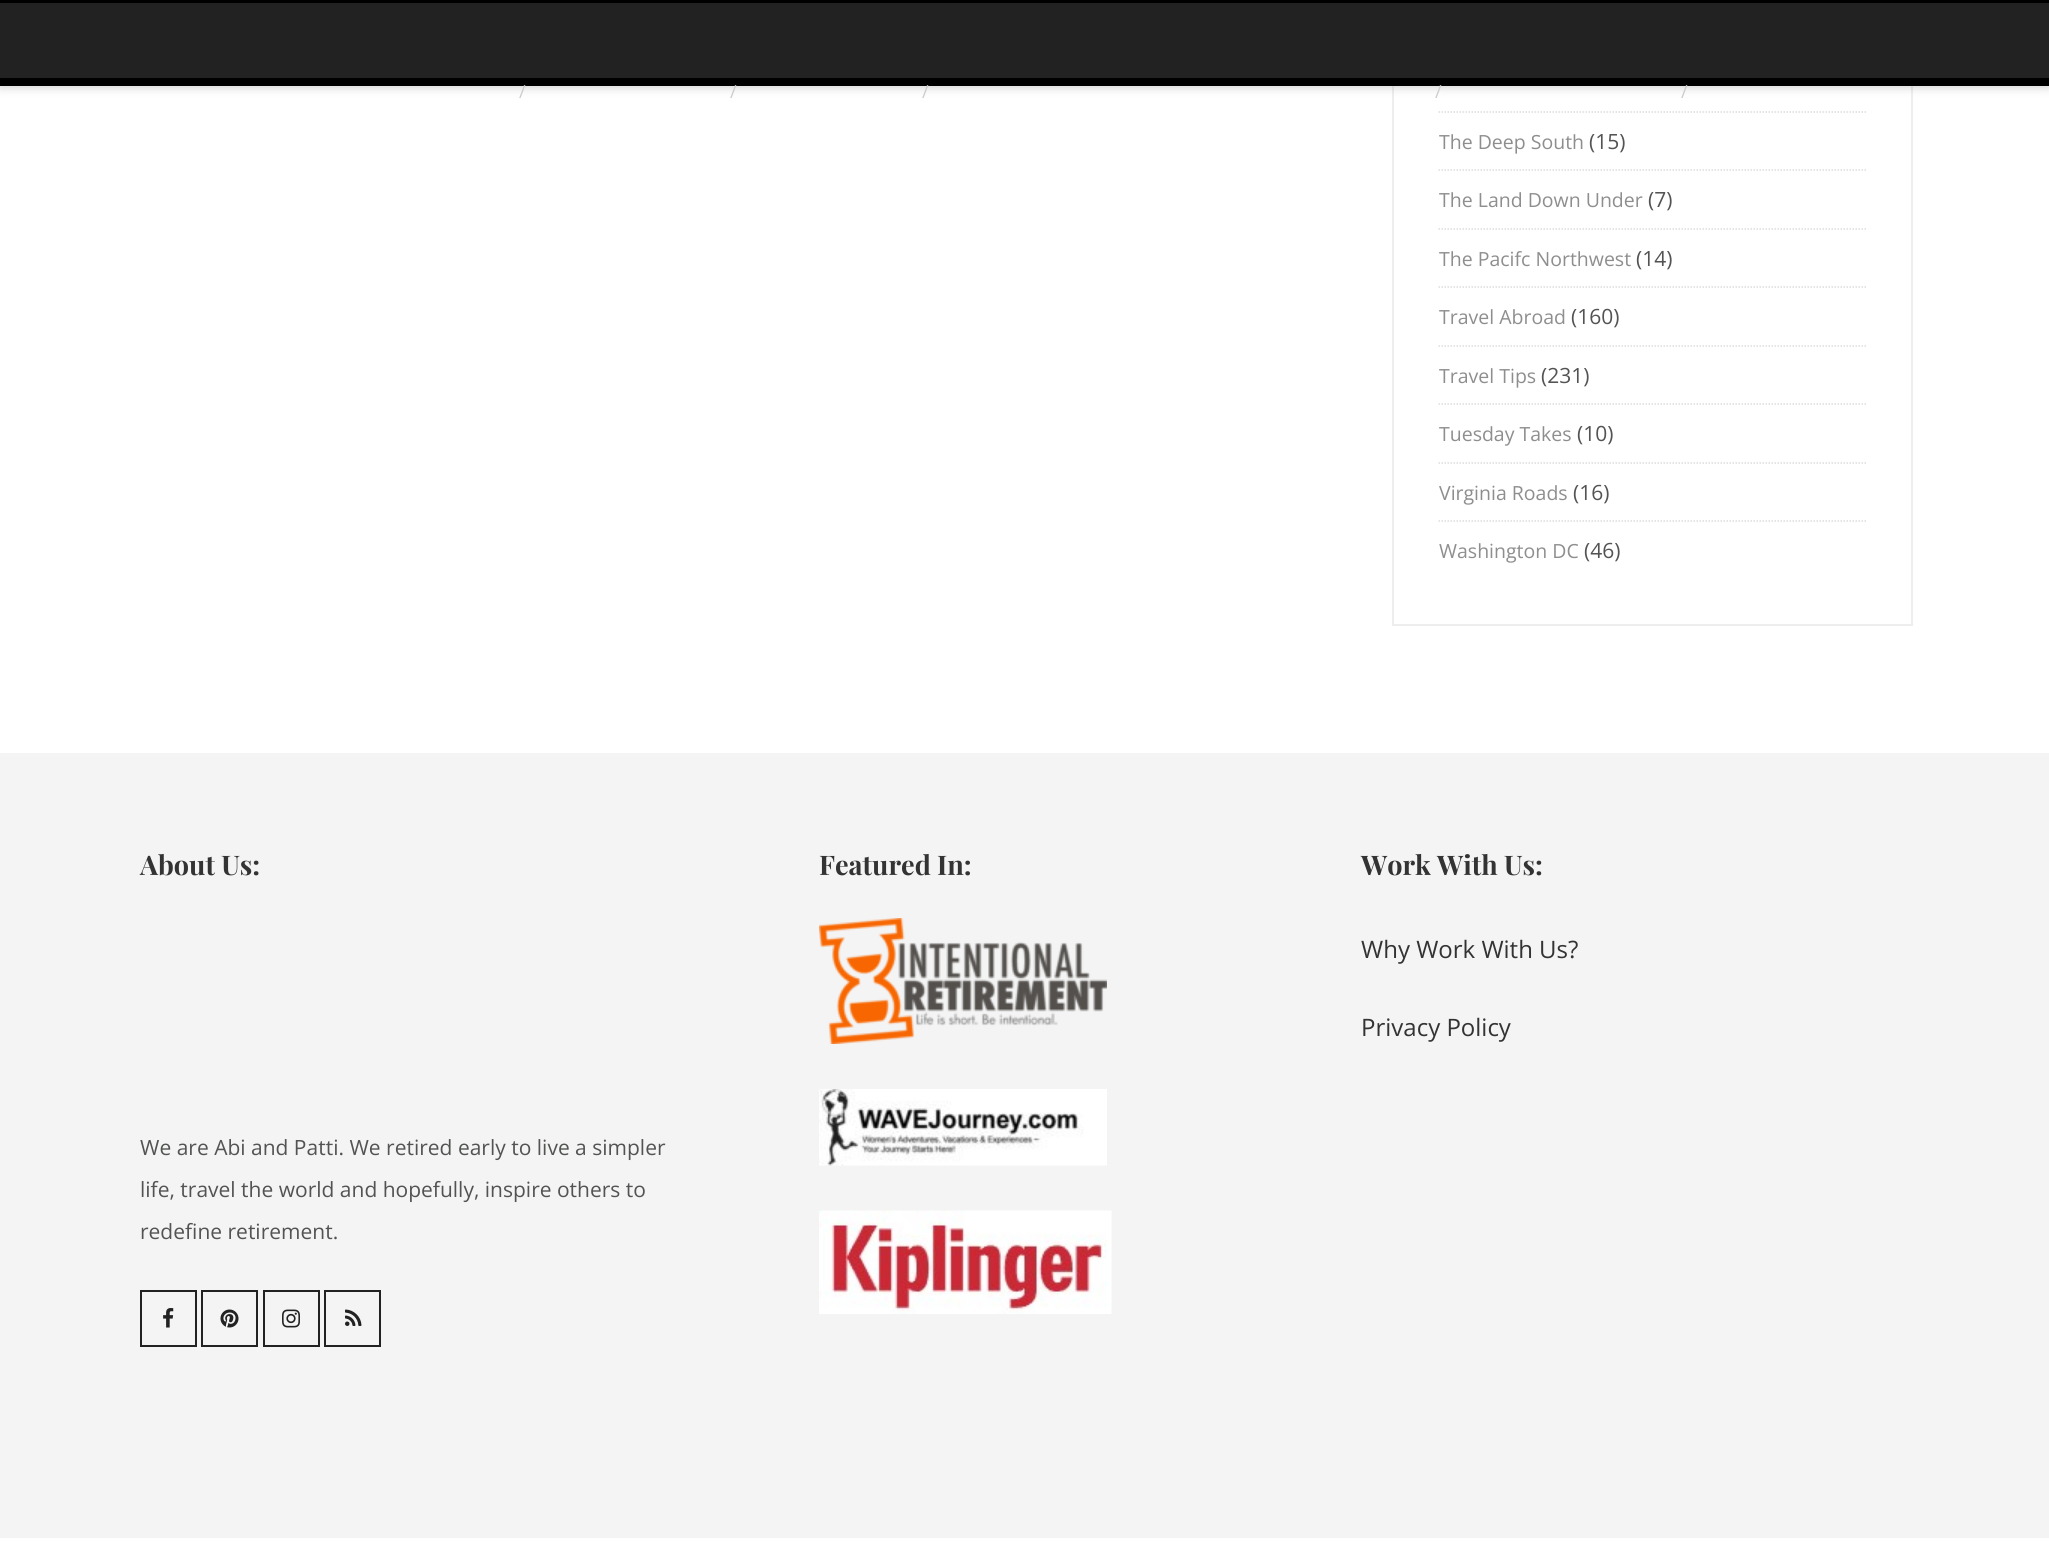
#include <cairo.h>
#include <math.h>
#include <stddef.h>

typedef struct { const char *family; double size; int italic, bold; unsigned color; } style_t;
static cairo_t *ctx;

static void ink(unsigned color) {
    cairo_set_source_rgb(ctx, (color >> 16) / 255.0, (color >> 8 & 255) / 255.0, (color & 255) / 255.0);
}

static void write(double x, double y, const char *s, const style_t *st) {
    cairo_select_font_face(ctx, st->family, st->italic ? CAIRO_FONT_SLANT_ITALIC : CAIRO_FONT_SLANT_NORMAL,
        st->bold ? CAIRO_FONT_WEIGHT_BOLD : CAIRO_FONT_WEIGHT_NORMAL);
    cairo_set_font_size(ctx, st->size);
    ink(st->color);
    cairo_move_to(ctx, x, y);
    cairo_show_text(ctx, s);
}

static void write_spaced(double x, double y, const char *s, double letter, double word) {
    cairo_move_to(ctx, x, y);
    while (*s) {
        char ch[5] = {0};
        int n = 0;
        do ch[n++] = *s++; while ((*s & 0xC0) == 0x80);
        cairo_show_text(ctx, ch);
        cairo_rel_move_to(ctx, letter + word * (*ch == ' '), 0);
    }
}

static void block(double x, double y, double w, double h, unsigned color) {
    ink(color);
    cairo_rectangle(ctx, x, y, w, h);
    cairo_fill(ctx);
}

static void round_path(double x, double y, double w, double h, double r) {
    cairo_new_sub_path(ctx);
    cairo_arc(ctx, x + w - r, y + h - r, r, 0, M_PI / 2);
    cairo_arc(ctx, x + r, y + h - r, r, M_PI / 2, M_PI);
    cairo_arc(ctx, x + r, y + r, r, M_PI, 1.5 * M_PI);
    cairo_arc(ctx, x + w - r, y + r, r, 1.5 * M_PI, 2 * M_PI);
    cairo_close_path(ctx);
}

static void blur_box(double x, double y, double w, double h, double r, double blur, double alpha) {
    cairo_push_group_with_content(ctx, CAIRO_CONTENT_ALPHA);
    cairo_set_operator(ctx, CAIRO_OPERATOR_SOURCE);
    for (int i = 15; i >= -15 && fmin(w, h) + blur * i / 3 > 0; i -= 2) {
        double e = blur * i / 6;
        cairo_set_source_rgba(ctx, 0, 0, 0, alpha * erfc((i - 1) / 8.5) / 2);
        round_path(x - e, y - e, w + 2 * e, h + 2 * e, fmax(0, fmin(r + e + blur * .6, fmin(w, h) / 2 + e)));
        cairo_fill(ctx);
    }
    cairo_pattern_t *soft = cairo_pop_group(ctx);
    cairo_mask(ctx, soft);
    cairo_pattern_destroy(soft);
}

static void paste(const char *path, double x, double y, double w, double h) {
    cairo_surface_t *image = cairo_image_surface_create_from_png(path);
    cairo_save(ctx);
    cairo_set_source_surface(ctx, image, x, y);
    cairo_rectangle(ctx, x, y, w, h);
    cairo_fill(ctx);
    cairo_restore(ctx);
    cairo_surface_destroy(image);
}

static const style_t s1 = {"Open Sans", 19.5, 0, 0, 0x8e8e8e};
static const style_t s2 = {"Open Sans", 21, 0, 0, 0x525452};
static const style_t s3 = {"Playfair Display", 27, 0, 1, 0x333333};
static const style_t s4 = {"Open Sans", 24, 0, 0, 0x333333};

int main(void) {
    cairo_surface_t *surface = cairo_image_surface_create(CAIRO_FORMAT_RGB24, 2049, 1561);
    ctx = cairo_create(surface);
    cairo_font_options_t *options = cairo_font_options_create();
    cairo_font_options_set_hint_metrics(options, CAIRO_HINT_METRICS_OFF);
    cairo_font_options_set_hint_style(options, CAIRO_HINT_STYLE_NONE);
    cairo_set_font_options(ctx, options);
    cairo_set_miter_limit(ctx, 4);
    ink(0xffffff);
    cairo_paint(ctx);
    cairo_rectangle(ctx, 1393, -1, 519, 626);
    ink(0xeeeeee);
    cairo_stroke(ctx);
    ink(0x000000);
    blur_box(0, 2, 2049, 85, 0, 5, 0.2);
    block(0, 3, 2049, 75, 0x222222);
    block(0, 0, 2049, 3, 0x000000);
    block(0, 78, 2049, 8, 0x000000);
    cairo_select_font_face(ctx, "Open Sans", CAIRO_FONT_SLANT_NORMAL, CAIRO_FONT_WEIGHT_NORMAL);
    cairo_set_font_size(ctx, 18);
    ink(0xcccccc);
    write_spaced(519, 98, "/", 3, 0);
    write_spaced(730, 98, "/", 3, 0);
    write_spaced(922, 98, "/", 3, 0);
    write_spaced(1435, 98, "/", 3, 0);
    write_spaced(1681, 98, "/", 3, 0);
    cairo_new_path(ctx);
    cairo_move_to(ctx, 1438.5, 112);
    cairo_line_to(ctx, 1866, 112);
    ink(0xdddddd);
    cairo_set_line_width(ctx, 1.5);
    cairo_set_dash(ctx, (double[]){1.5, 1.5}, 2, 0);
    cairo_stroke(ctx);
    cairo_new_path(ctx);
    cairo_move_to(ctx, 1438.5, 170);
    cairo_line_to(ctx, 1866, 170);
    cairo_stroke(ctx);
    write(1439, 149, "The Deep South", &s1);
    write(1589, 149, "(15)", &s2);
    cairo_new_path(ctx);
    cairo_move_to(ctx, 1438.5, 229);
    cairo_line_to(ctx, 1866, 229);
    ink(0xdddddd);
    cairo_stroke(ctx);
    write(1439, 207, "The Land Down Under", &s1);
    write(1648, 207, "(7)", &s2);
    cairo_new_path(ctx);
    cairo_move_to(ctx, 1438.5, 287);
    cairo_line_to(ctx, 1866, 287);
    ink(0xdddddd);
    cairo_stroke(ctx);
    write(1439, 266, "The Pacifc Northwest", &s1);
    write(1636, 266, "(14)", &s2);
    cairo_new_path(ctx);
    cairo_move_to(ctx, 1438.5, 346);
    cairo_line_to(ctx, 1866, 346);
    ink(0xdddddd);
    cairo_stroke(ctx);
    write(1439, 324, "Travel Abroad", &s1);
    write(1571, 324, "(160)", &s2);
    cairo_new_path(ctx);
    cairo_move_to(ctx, 1438.5, 404);
    cairo_line_to(ctx, 1866, 404);
    ink(0xdddddd);
    cairo_stroke(ctx);
    write(1439, 383, "Travel Tips", &s1);
    write(1541, 383, "(231)", &s2);
    cairo_new_path(ctx);
    cairo_move_to(ctx, 1438.5, 463);
    cairo_line_to(ctx, 1866, 463);
    ink(0xdddddd);
    cairo_stroke(ctx);
    write(1439, 441, "Tuesday Takes", &s1);
    write(1577, 441, "(10)", &s2);
    cairo_new_path(ctx);
    cairo_move_to(ctx, 1438.5, 521);
    cairo_line_to(ctx, 1866, 521);
    ink(0xdddddd);
    cairo_stroke(ctx);
    write(1439, 500, "Virginia Roads", &s1);
    write(1573, 500, "(16)", &s2);
    write(1439, 558, "Washington DC", &s1);
    write(1584, 558, "(46)", &s2);
    block(0, 753, 2049, 785, 0xf4f4f4);
    write(140, 875, "About Us:", &s3);
    write(140, 1155, "We are Abi and Patti. We retired early to live a simpler", &s2);
    write(140, 1197, "life, travel the world and hopefully, inspire others to", &s2);
    write(140, 1239, "redefine retirement.", &s2);
    cairo_rectangle(ctx, 141, 1291, 55, 55);
    ink(0x222222);
    cairo_set_line_width(ctx, 2);
    cairo_set_dash(ctx, NULL, 0, 0);
    cairo_stroke(ctx);
    paste("pic1.png", 163, 1308, 11, 20);
    cairo_rectangle(ctx, 202, 1291, 55, 55);
    cairo_stroke(ctx);
    paste("pic2.png", 220, 1309, 19, 19);
    cairo_rectangle(ctx, 264, 1291, 55, 55);
    cairo_stroke(ctx);
    paste("pic3.png", 282, 1309, 18, 19);
    cairo_rectangle(ctx, 325, 1291, 55, 55);
    cairo_stroke(ctx);
    paste("pic4.png", 345, 1309, 17, 17);
    write(819, 875, "Featured In:", &s3);
    paste("pic5.png", 819, 918, 288, 126);
    paste("pic6.png", 819, 1089, 288, 77);
    paste("pic7.png", 819, 1210, 293, 104);
    write(1361, 875, "Work With Us:", &s3);
    write(1361, 958, "Why Work With Us?", &s4);
    write(1361, 1036, "Privacy Policy", &s4);
    cairo_surface_write_to_png(surface, "screenshot.png");
    cairo_font_options_destroy(options);
    cairo_destroy(ctx);
    cairo_surface_destroy(surface);
    return 0;
}
